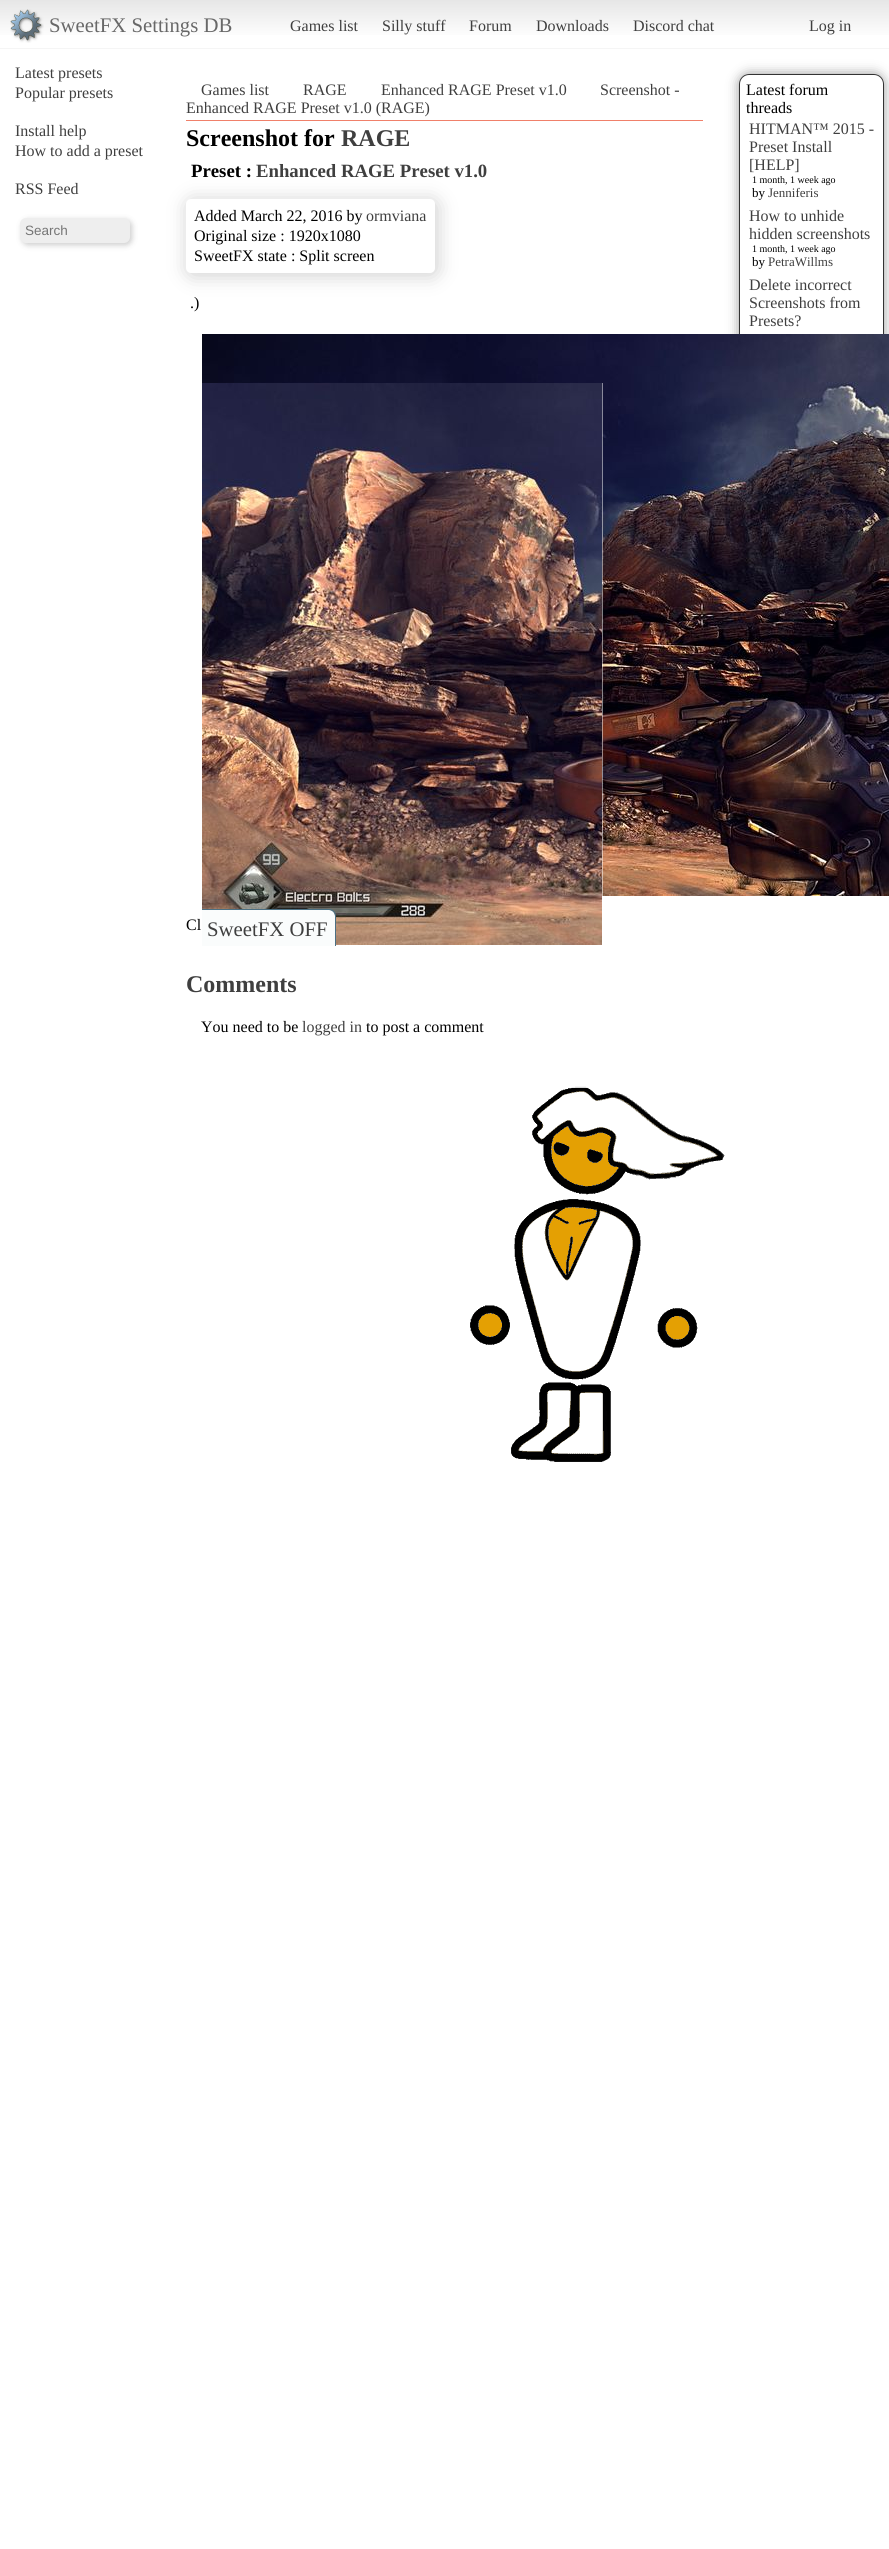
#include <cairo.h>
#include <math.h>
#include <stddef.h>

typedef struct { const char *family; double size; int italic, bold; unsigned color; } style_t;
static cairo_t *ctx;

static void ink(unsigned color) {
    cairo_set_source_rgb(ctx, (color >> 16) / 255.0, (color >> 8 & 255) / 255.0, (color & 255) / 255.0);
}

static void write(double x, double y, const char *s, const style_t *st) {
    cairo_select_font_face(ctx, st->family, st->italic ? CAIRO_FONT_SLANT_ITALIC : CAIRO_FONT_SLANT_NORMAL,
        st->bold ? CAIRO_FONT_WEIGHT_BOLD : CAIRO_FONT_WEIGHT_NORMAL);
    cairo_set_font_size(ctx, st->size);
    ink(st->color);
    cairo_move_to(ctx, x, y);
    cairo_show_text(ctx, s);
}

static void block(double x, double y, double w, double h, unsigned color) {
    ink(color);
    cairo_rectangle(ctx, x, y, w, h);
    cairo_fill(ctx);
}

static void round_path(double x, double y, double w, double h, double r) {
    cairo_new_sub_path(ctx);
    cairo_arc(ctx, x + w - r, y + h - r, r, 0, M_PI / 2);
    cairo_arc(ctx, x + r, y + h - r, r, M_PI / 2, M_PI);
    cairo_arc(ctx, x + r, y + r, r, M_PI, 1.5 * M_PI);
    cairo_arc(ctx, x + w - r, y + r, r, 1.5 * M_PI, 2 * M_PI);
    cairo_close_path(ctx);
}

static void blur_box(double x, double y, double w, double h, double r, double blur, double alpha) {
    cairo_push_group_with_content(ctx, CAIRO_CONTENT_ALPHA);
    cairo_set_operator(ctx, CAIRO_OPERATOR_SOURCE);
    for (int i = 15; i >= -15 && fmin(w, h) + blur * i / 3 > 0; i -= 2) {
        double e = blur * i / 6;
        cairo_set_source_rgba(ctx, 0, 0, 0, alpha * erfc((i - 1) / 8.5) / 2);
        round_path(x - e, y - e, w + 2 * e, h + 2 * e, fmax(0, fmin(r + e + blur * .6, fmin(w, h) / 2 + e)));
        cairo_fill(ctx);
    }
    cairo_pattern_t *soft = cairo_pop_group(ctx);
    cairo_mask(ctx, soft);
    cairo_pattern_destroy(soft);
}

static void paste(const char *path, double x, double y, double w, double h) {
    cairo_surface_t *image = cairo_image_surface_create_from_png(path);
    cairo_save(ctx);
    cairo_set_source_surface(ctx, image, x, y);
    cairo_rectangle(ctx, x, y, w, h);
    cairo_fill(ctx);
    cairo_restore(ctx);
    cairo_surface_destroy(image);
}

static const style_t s1 = {"Liberation Serif", 20.75, 0, 0, 0x686868};
static const style_t s2 = {"Liberation Serif", 16, 0, 0, 0x3f3f3f};
static const style_t s3 = {"Liberation Sans", 13.5, 0, 0, 0x757575};
static const style_t s4 = {"Liberation Serif", 24, 0, 1, 0x000000};
static const style_t s5 = {"Liberation Serif", 24, 0, 1, 0x3f3f3f};
static const style_t s6 = {"Liberation Serif", 18.75, 0, 1, 0x000000};
static const style_t s7 = {"Liberation Serif", 18.75, 0, 1, 0x3f3f3f};
static const style_t s8 = {"Liberation Serif", 16, 0, 0, 0x000000};
static const style_t s9 = {"Liberation Serif", 20.75, 0, 0, 0x3f3f3f};
static const style_t s10 = {"Liberation Serif", 10, 0, 0, 0x000000};
static const style_t s11 = {"Liberation Serif", 13, 0, 0, 0x000000};
static const style_t s12 = {"Liberation Serif", 13, 0, 0, 0x3f3f3f};

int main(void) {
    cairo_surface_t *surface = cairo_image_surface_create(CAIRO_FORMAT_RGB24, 889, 2549);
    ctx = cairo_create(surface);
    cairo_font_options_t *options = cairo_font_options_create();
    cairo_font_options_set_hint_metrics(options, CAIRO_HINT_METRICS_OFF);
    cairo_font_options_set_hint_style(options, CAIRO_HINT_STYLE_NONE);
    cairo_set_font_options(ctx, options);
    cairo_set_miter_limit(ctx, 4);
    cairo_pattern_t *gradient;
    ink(0xffffff);
    cairo_paint(ctx);
    paste("pic1.png", 470, 1086, 255, 376);
    gradient = cairo_pattern_create_linear(445, 0, 445, 48);
    cairo_pattern_add_color_stop_rgba(gradient, 0, 0.902, 0.902, 0.902, 1);
    cairo_pattern_add_color_stop_rgba(gradient, 0.8, 1, 1, 1, 1);
    cairo_set_source(ctx, gradient);
    cairo_pattern_destroy(gradient);
    cairo_rectangle(ctx, 0, 0, 889, 35);
    cairo_fill(ctx);
    block(0, 48, 889, 1, 0xf5f5f5);
    paste("pic2.png", 10, 9, 34, 34);
    write(49, 32, "SweetFX Settings DB", &s1);
    write(290, 31, "Games list", &s2);
    write(382, 31, "Silly stuff", &s2);
    write(469, 31, "Forum", &s2);
    write(536, 31, "Downloads", &s2);
    write(633, 31, "Discord chat", &s2);
    write(809, 31, "Log in", &s2);
    write(15, 78, "Latest presets", &s2);
    write(15, 98, "Popular presets", &s2);
    write(15, 136, "Install help", &s2);
    write(15, 156, "How to add a preset", &s2);
    write(15, 194, "RSS Feed", &s2);
    ink(0x323232);
    blur_box(22, 220, 110, 25, 6, 3, 0.25);
    ink(0xeeeeee);
    round_path(20, 218, 110, 25, 6);
    cairo_fill(ctx);
    write(25, 235, "Search", &s3);
    cairo_set_source_rgba(ctx, 1, 1, 1, 0.84);
    cairo_rectangle(ctx, 571, 1086, 17, 2);
    cairo_fill(ctx);
    block(186, 120, 517, 1, 0xf0806a);
    write(201, 95, "Games list", &s2);
    write(303, 95, "RAGE", &s2);
    write(381, 95, "Enhanced RAGE Preset v1.0", &s2);
    write(600, 95, "Screenshot -", &s2);
    write(186, 113, "Enhanced RAGE Preset v1.0 (RAGE)", &s2);
    write(186, 146, "Screenshot for", &s4);
    write(341, 146, "RAGE", &s5);
    write(191, 177, "Preset :", &s6);
    write(256, 177, "Enhanced RAGE Preset v1.0", &s7);
    ink(0xb6b6b6);
    blur_box(188, 201, 249, 74, 5, 10, 0.68);
    ink(0xffffff);
    round_path(186, 199, 249, 74, 5);
    cairo_fill(ctx);
    write(194, 221, "Added March 22, 2016 by", &s8);
    write(366, 221, "ormviana", &s2);
    write(194, 241, "Original size : 1920x1080", &s8);
    write(194, 261, "SweetFX state : Split screen", &s8);
    write(190, 308, ".)", &s8);
    write(186, 930, "Cl", &s8);
    cairo_save(ctx);
    cairo_set_fill_rule(ctx, CAIRO_FILL_RULE_EVEN_ODD);
    cairo_new_path(ctx);
    cairo_move_to(ctx, 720, 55);
    cairo_line_to(ctx, 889, 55);
    cairo_line_to(ctx, 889, 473);
    cairo_line_to(ctx, 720, 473);
    cairo_close_path(ctx);
    cairo_move_to(ctx, 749, 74);
    cairo_line_to(ctx, 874, 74);
    cairo_curve_to(ctx, 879.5, 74, 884, 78.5, 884, 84);
    cairo_line_to(ctx, 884, 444);
    cairo_curve_to(ctx, 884, 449.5, 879.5, 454, 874, 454);
    cairo_line_to(ctx, 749, 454);
    cairo_curve_to(ctx, 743.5, 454, 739, 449.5, 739, 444);
    cairo_line_to(ctx, 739, 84);
    cairo_curve_to(ctx, 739, 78.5, 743.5, 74, 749, 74);
    cairo_close_path(ctx);
    cairo_clip(ctx);
    ink(0x999999);
    blur_box(739, 74, 145, 380, 10, 6, 1);
    cairo_restore(ctx);
    round_path(739.5, 74.5, 144, 379, 9.5);
    ink(0x333333);
    cairo_set_line_width(ctx, 1);
    cairo_stroke(ctx);
    paste("pic3.png", 202, 334, 687, 562);
    cairo_set_source_rgba(ctx, 1, 1, 1, 0.5);
    cairo_rectangle(ctx, 602, 383, 1, 513);
    cairo_fill(ctx);
    paste("pic4.png", 202, 383, 400, 562);
    ink(0xfafcfc);
    cairo_new_path(ctx);
    cairo_move_to(ctx, 202, 910);
    cairo_line_to(ctx, 329, 910);
    cairo_curve_to(ctx, 332.5, 910, 335, 912.5, 335, 916);
    cairo_line_to(ctx, 335, 946);
    cairo_line_to(ctx, 202, 946);
    cairo_close_path(ctx);
    cairo_fill(ctx);
    ink(0x4c7083);
    cairo_set_fill_rule(ctx, CAIRO_FILL_RULE_EVEN_ODD);
    cairo_new_path(ctx);
    cairo_move_to(ctx, 202, 909);
    cairo_line_to(ctx, 329, 909);
    cairo_curve_to(ctx, 333, 909, 336, 912, 336, 916);
    cairo_line_to(ctx, 336, 946);
    cairo_line_to(ctx, 202, 946);
    cairo_close_path(ctx);
    cairo_move_to(ctx, 202, 910);
    cairo_line_to(ctx, 329, 910);
    cairo_curve_to(ctx, 332, 910, 335, 913, 335, 916);
    cairo_line_to(ctx, 335, 946);
    cairo_line_to(ctx, 202, 946);
    cairo_close_path(ctx);
    cairo_fill(ctx);
    write(207, 936, "SweetFX OFF", &s9);
    write(186, 992, "Comments", &s5);
    write(201, 1032, "You need to be", &s8);
    write(302, 1032, "logged in", &s2);
    write(366, 1032, "to post a comment", &s8);
    write(746, 95, "Latest forum", &s8);
    write(746, 113, "threads", &s8);
    write(749, 134, "HITMAN™ 2015 -", &s2);
    write(749, 152, "Preset Install", &s2);
    write(749, 170, "[HELP]", &s2);
    write(752, 183, "1 month, 1 week ago", &s10);
    write(752, 197, "by", &s11);
    write(768, 197, "Jenniferis", &s12);
    write(749, 221, "How to unhide", &s2);
    write(749, 239, "hidden screenshots", &s2);
    write(752, 252, "1 month, 1 week ago", &s10);
    write(752, 266, "by", &s11);
    write(768, 266, "PetraWillms", &s12);
    write(749, 290, "Delete incorrect", &s2);
    write(749, 308, "Screenshots from", &s2);
    write(749, 326, "Presets?", &s2);
    cairo_surface_write_to_png(surface, "screenshot.png");
    cairo_font_options_destroy(options);
    cairo_destroy(ctx);
    cairo_surface_destroy(surface);
    return 0;
}
